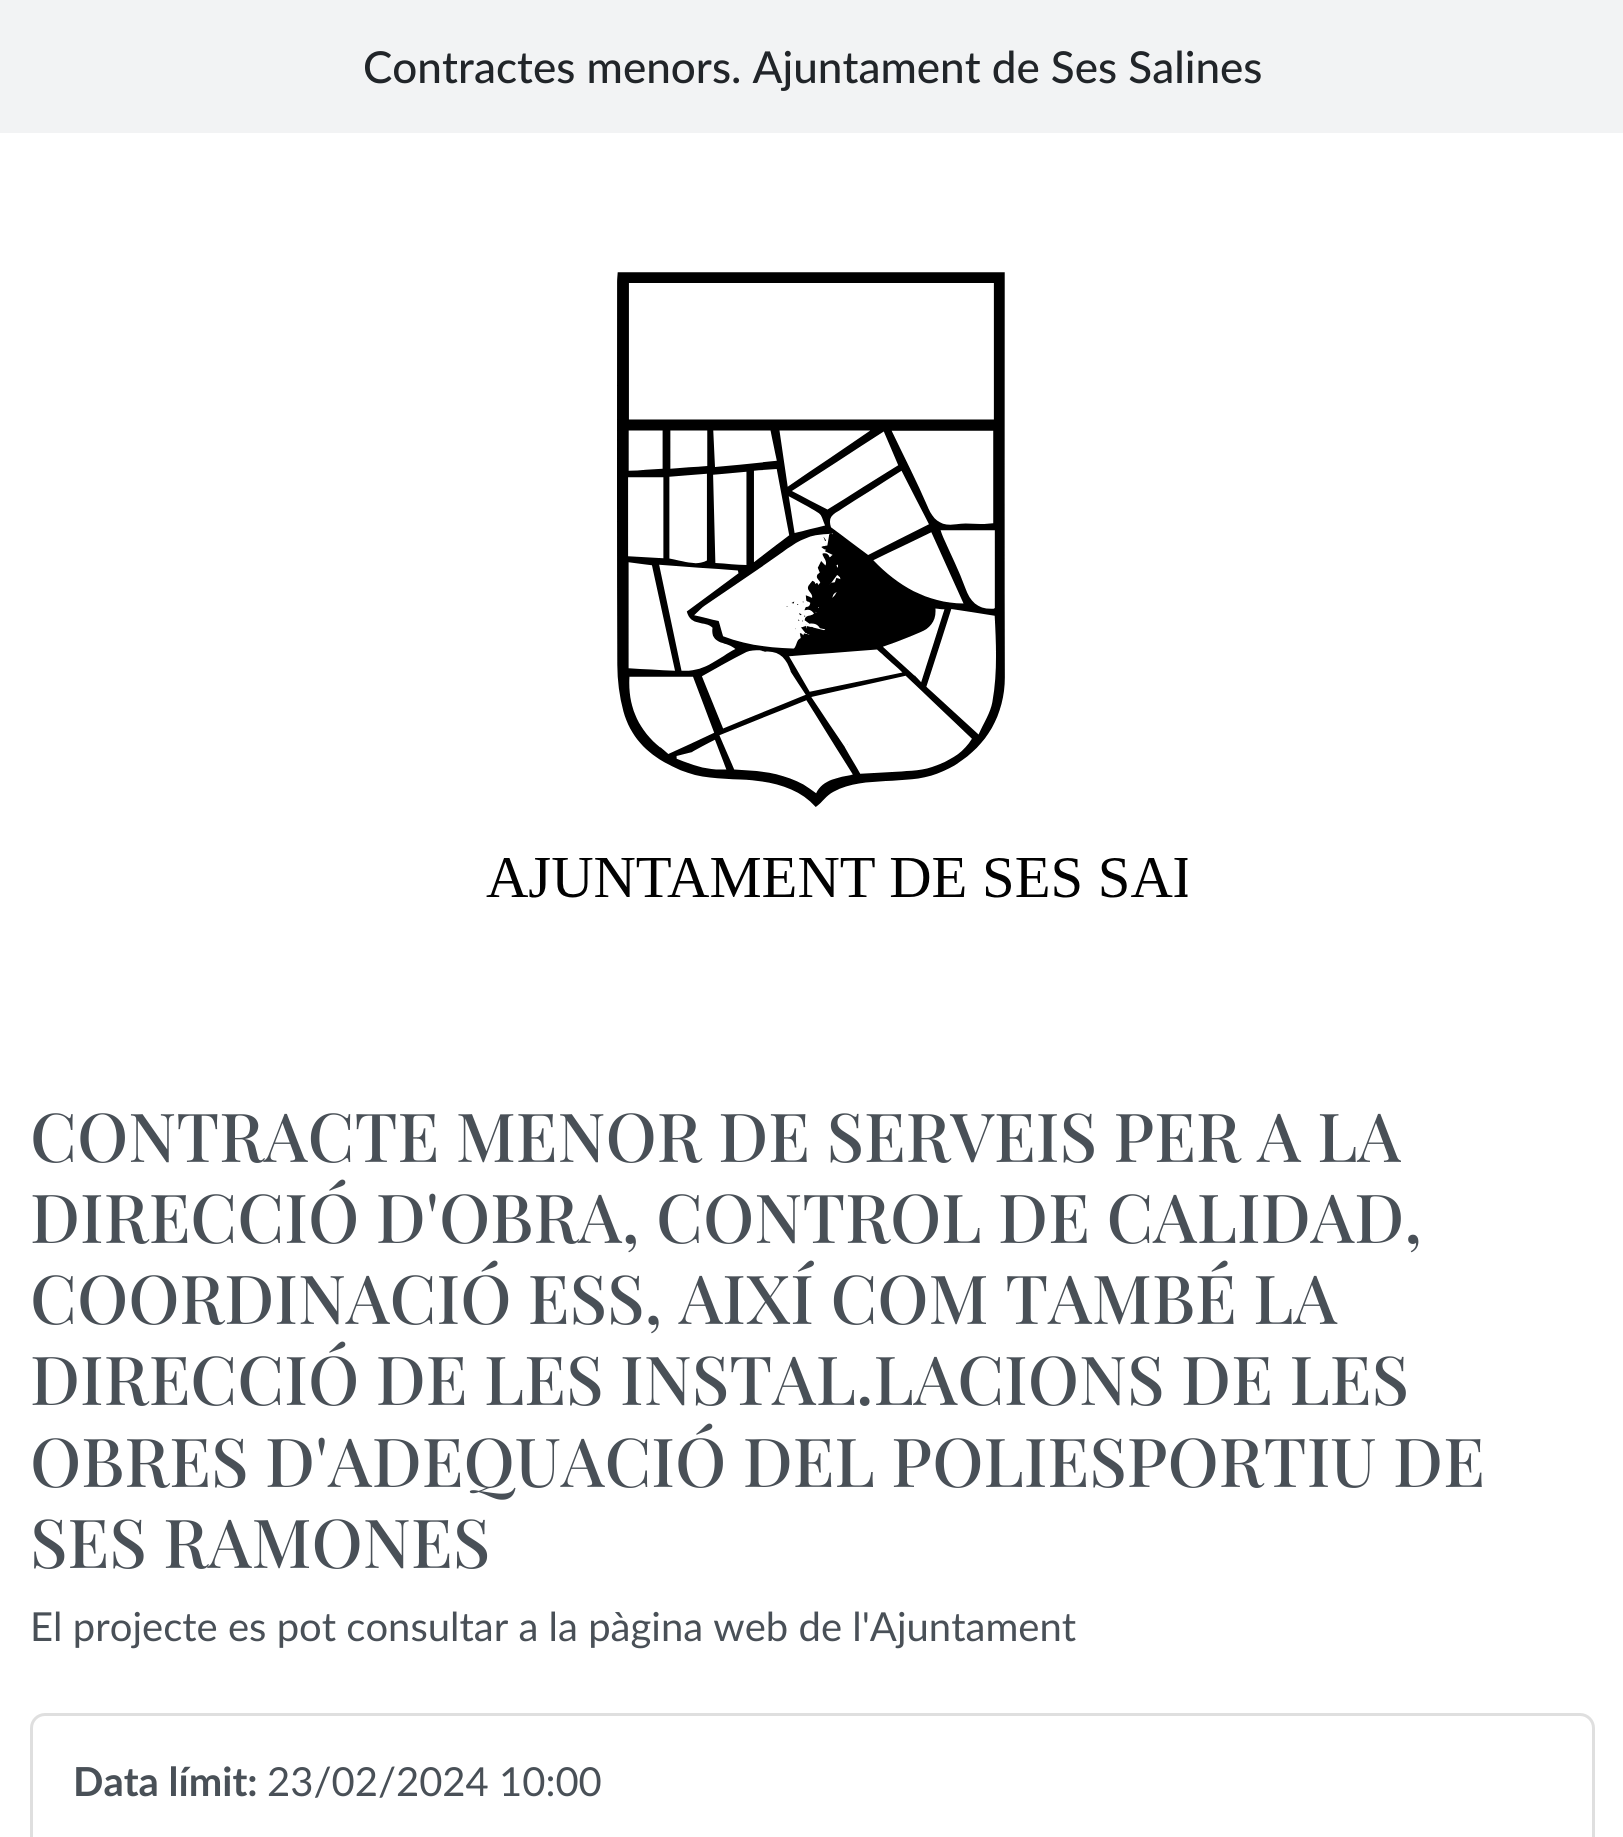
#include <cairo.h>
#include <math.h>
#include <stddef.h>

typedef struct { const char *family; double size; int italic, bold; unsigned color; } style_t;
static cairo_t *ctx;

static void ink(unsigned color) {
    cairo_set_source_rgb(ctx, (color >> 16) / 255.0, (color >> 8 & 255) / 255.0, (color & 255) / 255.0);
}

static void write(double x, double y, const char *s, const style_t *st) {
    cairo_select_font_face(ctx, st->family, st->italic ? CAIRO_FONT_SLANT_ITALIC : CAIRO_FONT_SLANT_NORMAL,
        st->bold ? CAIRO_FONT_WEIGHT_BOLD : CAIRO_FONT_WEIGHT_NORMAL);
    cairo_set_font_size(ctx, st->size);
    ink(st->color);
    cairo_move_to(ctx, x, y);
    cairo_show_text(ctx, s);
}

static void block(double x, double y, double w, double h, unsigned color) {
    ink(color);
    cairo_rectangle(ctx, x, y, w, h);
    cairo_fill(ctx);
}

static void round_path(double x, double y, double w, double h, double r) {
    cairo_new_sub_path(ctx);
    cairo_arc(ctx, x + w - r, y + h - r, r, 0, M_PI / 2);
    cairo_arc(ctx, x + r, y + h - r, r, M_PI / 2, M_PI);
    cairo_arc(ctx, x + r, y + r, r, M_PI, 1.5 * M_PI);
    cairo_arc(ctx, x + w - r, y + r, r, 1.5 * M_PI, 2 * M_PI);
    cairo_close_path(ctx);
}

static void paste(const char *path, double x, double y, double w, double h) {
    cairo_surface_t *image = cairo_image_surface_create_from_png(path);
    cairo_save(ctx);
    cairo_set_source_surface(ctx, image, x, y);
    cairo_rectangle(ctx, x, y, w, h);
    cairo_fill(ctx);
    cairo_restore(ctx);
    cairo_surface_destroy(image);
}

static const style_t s1 = {"Lato Medium", 44, 0, 0, 0x212529};
static const style_t s2 = {"Playfair Display Medium", 67.6, 0, 0, 0x495057};
static const style_t s3 = {"Lato", 40, 0, 0, 0x495057};
static const style_t s4 = {"Lato", 40, 0, 1, 0x495057};

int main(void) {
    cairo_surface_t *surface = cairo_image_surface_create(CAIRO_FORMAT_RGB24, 1623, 1837);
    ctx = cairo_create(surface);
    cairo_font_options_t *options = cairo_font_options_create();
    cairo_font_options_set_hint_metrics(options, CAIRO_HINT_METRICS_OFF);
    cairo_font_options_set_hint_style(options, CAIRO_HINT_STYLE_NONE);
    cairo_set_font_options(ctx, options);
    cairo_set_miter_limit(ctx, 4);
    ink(0xffffff);
    cairo_paint(ctx);
    block(0, 0, 1623, 133, 0xf2f3f4);
    write(363, 83, "Contractes menors. Ajuntament de Ses Salines", &s1);
    paste("pic1.png", 486, 272, 702, 626);
    write(30, 1162, "CONTRACTE MENOR DE SERVEIS PER A LA", &s2);
    write(30, 1243, "DIRECCIÓ D'OBRA, CONTROL DE CALIDAD,", &s2);
    write(30, 1324, "COORDINACIÓ ESS, AIXÍ COM TAMBÉ LA", &s2);
    write(30, 1405, "DIRECCIÓ DE LES INSTAL.LACIONS DE LES", &s2);
    write(30, 1487, "OBRES D'ADEQUACIÓ DEL POLIESPORTIU DE", &s2);
    write(30, 1568, "SES RAMONES", &s2);
    write(30, 1641, "El projecte es pot consultar a la pàgina web de l'Ajuntament", &s3);
    round_path(31.5, 1714.5, 1562, 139, 13.5);
    ink(0xdfdfdf);
    cairo_set_line_width(ctx, 3);
    cairo_stroke(ctx);
    write(73, 1796, "Data límit:", &s4);
    write(267, 1796, "23/02/2024 10:00", &s3);
    cairo_surface_write_to_png(surface, "screenshot.png");
    cairo_font_options_destroy(options);
    cairo_destroy(ctx);
    cairo_surface_destroy(surface);
    return 0;
}
